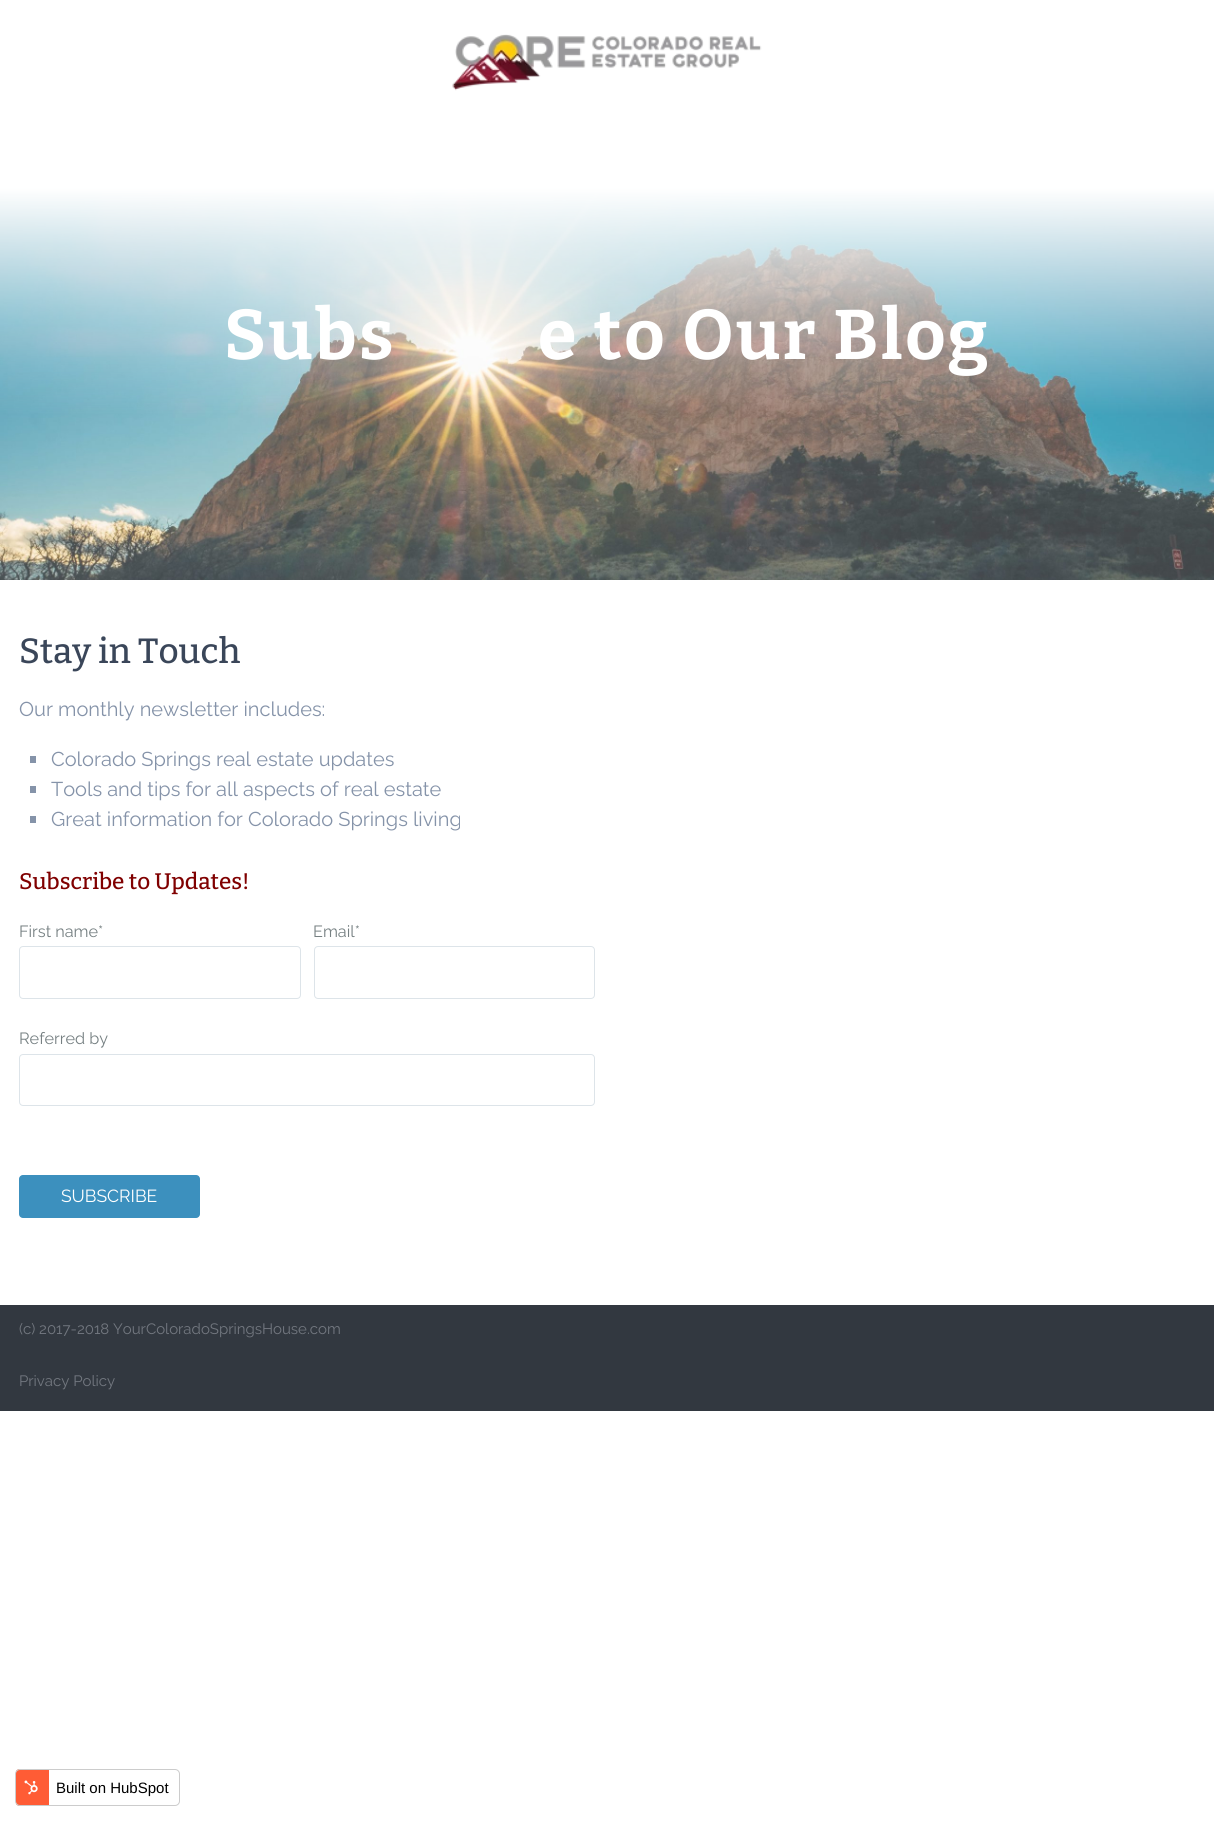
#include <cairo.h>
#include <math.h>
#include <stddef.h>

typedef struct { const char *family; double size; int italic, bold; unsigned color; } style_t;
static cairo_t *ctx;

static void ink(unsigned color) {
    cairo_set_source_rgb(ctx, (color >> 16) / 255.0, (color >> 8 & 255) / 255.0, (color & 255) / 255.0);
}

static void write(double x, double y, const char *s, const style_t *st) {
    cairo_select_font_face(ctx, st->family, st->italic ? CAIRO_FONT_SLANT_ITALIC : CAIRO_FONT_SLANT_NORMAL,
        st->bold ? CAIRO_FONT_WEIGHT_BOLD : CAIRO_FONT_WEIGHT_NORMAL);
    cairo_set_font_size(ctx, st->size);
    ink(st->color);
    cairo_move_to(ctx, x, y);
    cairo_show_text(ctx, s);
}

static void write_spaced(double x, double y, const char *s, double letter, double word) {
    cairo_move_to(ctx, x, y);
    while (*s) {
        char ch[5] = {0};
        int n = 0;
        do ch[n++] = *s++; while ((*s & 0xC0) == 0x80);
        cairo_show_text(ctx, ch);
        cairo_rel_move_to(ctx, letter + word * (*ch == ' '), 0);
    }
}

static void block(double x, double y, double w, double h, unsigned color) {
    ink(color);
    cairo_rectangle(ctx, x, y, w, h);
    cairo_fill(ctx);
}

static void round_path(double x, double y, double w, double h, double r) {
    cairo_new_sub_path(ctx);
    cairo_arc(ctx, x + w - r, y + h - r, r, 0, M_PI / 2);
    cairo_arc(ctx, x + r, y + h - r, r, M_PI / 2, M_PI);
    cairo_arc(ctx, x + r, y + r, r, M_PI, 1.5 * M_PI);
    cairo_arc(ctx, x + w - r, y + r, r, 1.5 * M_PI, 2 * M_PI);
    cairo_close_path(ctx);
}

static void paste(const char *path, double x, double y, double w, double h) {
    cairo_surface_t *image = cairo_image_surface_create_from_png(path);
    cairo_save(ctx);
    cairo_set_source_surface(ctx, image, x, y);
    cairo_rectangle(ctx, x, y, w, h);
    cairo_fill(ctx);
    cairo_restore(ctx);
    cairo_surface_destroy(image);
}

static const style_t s1 = {"Bitter Medium", 35, 0, 0, 0x3a4659};
static const style_t s2 = {"Raleway", 20, 0, 0, 0x8593a9};
static const style_t s3 = {"Bitter Medium", 22.5, 0, 0, 0x800000};
static const style_t s4 = {"Raleway", 16.25, 0, 0, 0x768082};
static const style_t s5 = {"Raleway", 17.5, 0, 0, 0xffffff};
static const style_t s6 = {"Raleway", 15, 0, 0, 0x72777f};
static const style_t s7 = {"Liberation Sans", 15, 0, 0, 0x000000};

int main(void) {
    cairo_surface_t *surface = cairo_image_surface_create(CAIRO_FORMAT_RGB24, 1214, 1821);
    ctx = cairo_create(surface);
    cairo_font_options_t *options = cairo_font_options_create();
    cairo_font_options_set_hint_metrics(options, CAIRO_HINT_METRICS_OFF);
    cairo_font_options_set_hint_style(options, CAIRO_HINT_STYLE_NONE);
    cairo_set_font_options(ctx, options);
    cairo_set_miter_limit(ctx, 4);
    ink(0xffffff);
    cairo_paint(ctx);
    paste("pic1.png", 452, 34, 310, 57);
    paste("pic2.png", 0, 168, 1214, 412);
    cairo_select_font_face(ctx, "Bitter", CAIRO_FONT_SLANT_NORMAL, CAIRO_FONT_WEIGHT_BOLD);
    cairo_set_font_size(ctx, 70);
    ink(0xffffff);
    write_spaced(224, 359, "Subs", 2.5, 0);
    write_spaced(538, 359, "e to Our Blog", 2.5, 0);
    write(19, 663, "Stay in Touch", &s1);
    write(19, 716, "Our monthly newsletter includes:", &s2);
    block(30, 756, 6, 7, 0x8593a9);
    write(51, 766, "Colorado Springs real estate updates", &s2);
    block(30, 786, 6, 7, 0x8593a9);
    write(51, 796, "Tools and tips for all aspects of real estate", &s2);
    block(30, 816, 6, 7, 0x8593a9);
    write(51, 826, "Great information for Colorado Springs living", &s2);
    write(19, 889, "Subscribe to Updates!", &s3);
    write(19, 937, "First name*", &s4);
    round_path(19.5, 946.5, 281, 52, 3.5);
    ink(0xdde4e9);
    cairo_set_line_width(ctx, 1);
    cairo_stroke(ctx);
    write(313, 937, "Email*", &s4);
    round_path(314.5, 946.5, 280, 52, 3.5);
    ink(0xdde4e9);
    cairo_stroke(ctx);
    write(19, 1044, "Referred by", &s4);
    round_path(19.5, 1054.5, 575, 51, 3.5);
    ink(0xdde4e9);
    cairo_stroke(ctx);
    ink(0x3c90be);
    round_path(19, 1175, 181, 43, 4);
    cairo_fill(ctx);
    write(61, 1202, "SUBSCRIBE", &s5);
    block(0, 1305, 1214, 106, 0x323840);
    write(19, 1334, "(c) 2017-2018 YourColoradoSpringsHouse.com", &s6);
    write(19, 1386, "Privacy Policy", &s6);
    cairo_save(ctx);
    round_path(15, 1769, 165, 37, 5);
    cairo_clip(ctx);
    block(16, 1769, 33, 37, 0xff5c35);
    cairo_restore(ctx);
    round_path(15.5, 1769.5, 164, 36, 4.5);
    ink(0xcccccc);
    cairo_stroke(ctx);
    paste("pic3.png", 24, 1780, 14, 15);
    write(56, 1793, "Built on HubSpot", &s7);
    cairo_surface_write_to_png(surface, "screenshot.png");
    cairo_font_options_destroy(options);
    cairo_destroy(ctx);
    cairo_surface_destroy(surface);
    return 0;
}
